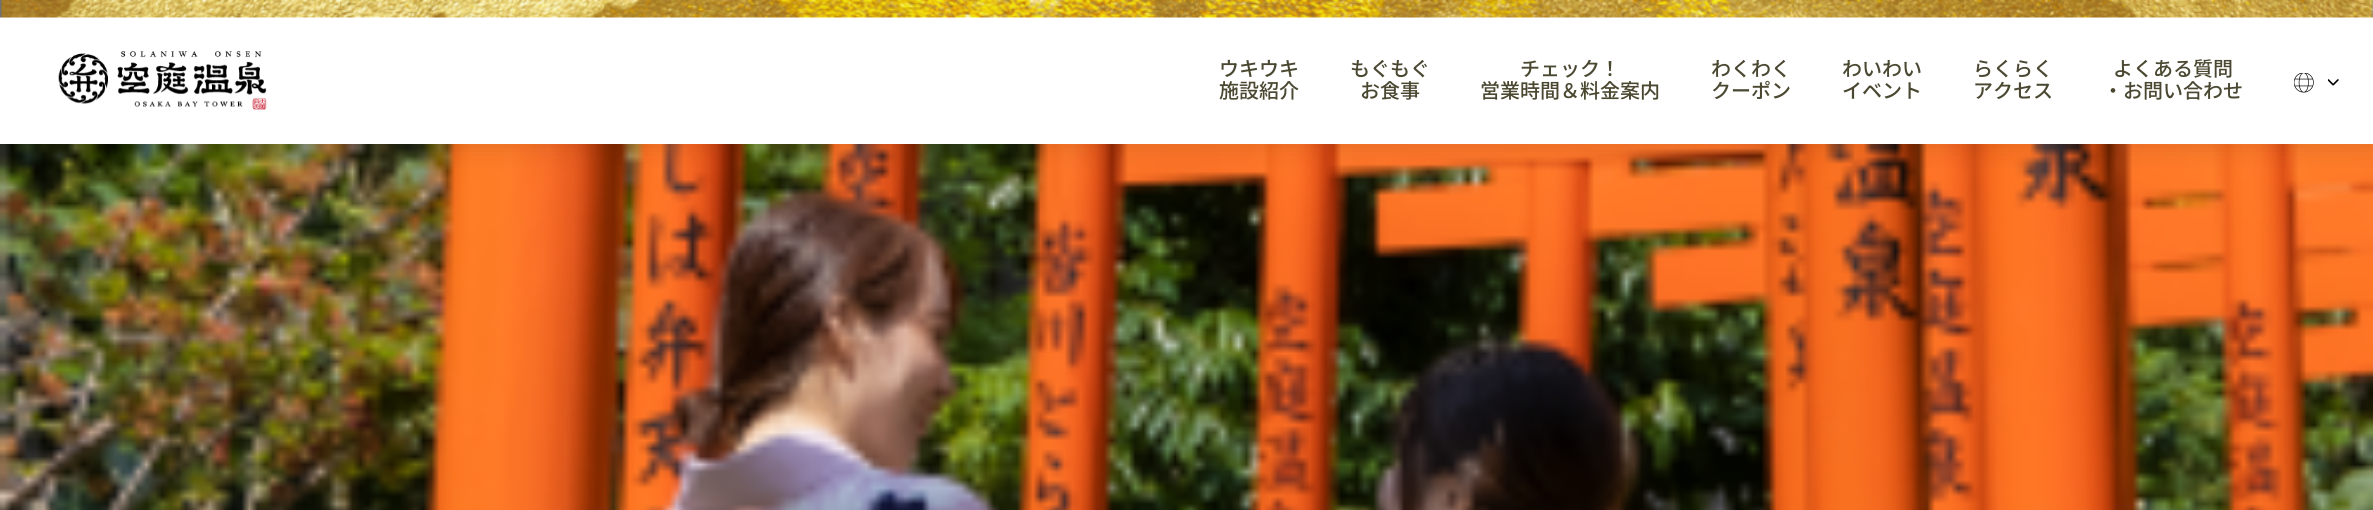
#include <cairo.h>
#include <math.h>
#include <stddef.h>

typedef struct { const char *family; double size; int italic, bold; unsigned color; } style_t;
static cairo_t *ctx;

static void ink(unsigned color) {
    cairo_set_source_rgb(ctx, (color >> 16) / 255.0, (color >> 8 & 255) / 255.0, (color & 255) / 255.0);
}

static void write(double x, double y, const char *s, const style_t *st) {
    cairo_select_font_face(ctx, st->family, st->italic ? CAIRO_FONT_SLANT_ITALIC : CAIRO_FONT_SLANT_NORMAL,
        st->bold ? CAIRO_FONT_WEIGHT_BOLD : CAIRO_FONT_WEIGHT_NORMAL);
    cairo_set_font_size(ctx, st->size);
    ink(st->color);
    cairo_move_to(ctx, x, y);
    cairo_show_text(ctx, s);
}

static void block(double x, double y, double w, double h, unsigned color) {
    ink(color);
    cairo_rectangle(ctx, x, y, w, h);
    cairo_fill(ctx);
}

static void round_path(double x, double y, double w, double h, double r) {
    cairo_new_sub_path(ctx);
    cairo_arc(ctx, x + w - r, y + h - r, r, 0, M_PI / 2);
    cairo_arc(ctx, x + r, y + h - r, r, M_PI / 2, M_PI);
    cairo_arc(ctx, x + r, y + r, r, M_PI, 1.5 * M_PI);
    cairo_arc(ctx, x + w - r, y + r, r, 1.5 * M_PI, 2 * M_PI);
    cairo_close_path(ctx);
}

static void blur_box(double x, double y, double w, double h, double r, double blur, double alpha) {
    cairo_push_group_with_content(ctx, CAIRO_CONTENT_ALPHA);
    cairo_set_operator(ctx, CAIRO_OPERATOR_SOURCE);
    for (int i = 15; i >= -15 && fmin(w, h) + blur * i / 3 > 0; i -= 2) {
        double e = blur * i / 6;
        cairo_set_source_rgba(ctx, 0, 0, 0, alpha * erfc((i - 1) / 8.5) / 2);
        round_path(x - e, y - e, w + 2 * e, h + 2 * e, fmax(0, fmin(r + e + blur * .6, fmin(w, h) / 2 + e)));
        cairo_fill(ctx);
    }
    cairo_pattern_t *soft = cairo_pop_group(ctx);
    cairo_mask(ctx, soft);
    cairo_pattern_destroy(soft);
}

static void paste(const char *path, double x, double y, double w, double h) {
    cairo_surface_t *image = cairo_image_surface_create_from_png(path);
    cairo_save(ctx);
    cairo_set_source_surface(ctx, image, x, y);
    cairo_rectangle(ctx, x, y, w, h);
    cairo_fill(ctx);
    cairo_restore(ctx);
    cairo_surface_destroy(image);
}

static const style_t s1 = {"Noto Sans JP Medium", 20, 0, 0, 0x4b4832};

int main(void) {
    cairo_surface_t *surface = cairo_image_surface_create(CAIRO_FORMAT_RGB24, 2373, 510);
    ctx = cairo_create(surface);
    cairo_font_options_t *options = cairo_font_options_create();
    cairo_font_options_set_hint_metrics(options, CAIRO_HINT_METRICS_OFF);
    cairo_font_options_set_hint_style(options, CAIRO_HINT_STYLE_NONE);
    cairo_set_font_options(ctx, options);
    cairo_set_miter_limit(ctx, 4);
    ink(0xffffff);
    cairo_paint(ctx);
    paste("pic5.png", 0, 144, 2373, 366);
    ink(0x000000);
    blur_box(0, 6, 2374, 144, 0, 12.5, 0.1);
    block(0, 0, 2373, 144, 0xffffff);
    paste("pic1.png", 0, 0, 2373, 18);
    paste("pic2.png", 58, 51, 209, 59);
    write(1219, 76, "ウキウキ", &s1);
    write(1219, 98, "施設紹介", &s1);
    write(1350, 76, "もぐもぐ", &s1);
    write(1360, 98, "お食事", &s1);
    write(1520, 76, "チェック！", &s1);
    write(1480, 98, "営業時間＆料金案内", &s1);
    write(1711, 76, "わくわく", &s1);
    write(1711, 98, "クーポン", &s1);
    write(1842, 76, "わいわい", &s1);
    write(1842, 98, "イベント", &s1);
    write(1973, 76, "らくらく", &s1);
    write(1973, 98, "アクセス", &s1);
    write(2113, 76, "よくある質問", &s1);
    write(2103, 98, "・お問い合わせ", &s1);
    paste("pic3.png", 2294, 73, 20, 20);
    paste("pic4.png", 2328, 79, 11, 7);
    cairo_surface_write_to_png(surface, "screenshot.png");
    cairo_font_options_destroy(options);
    cairo_destroy(ctx);
    cairo_surface_destroy(surface);
    return 0;
}
